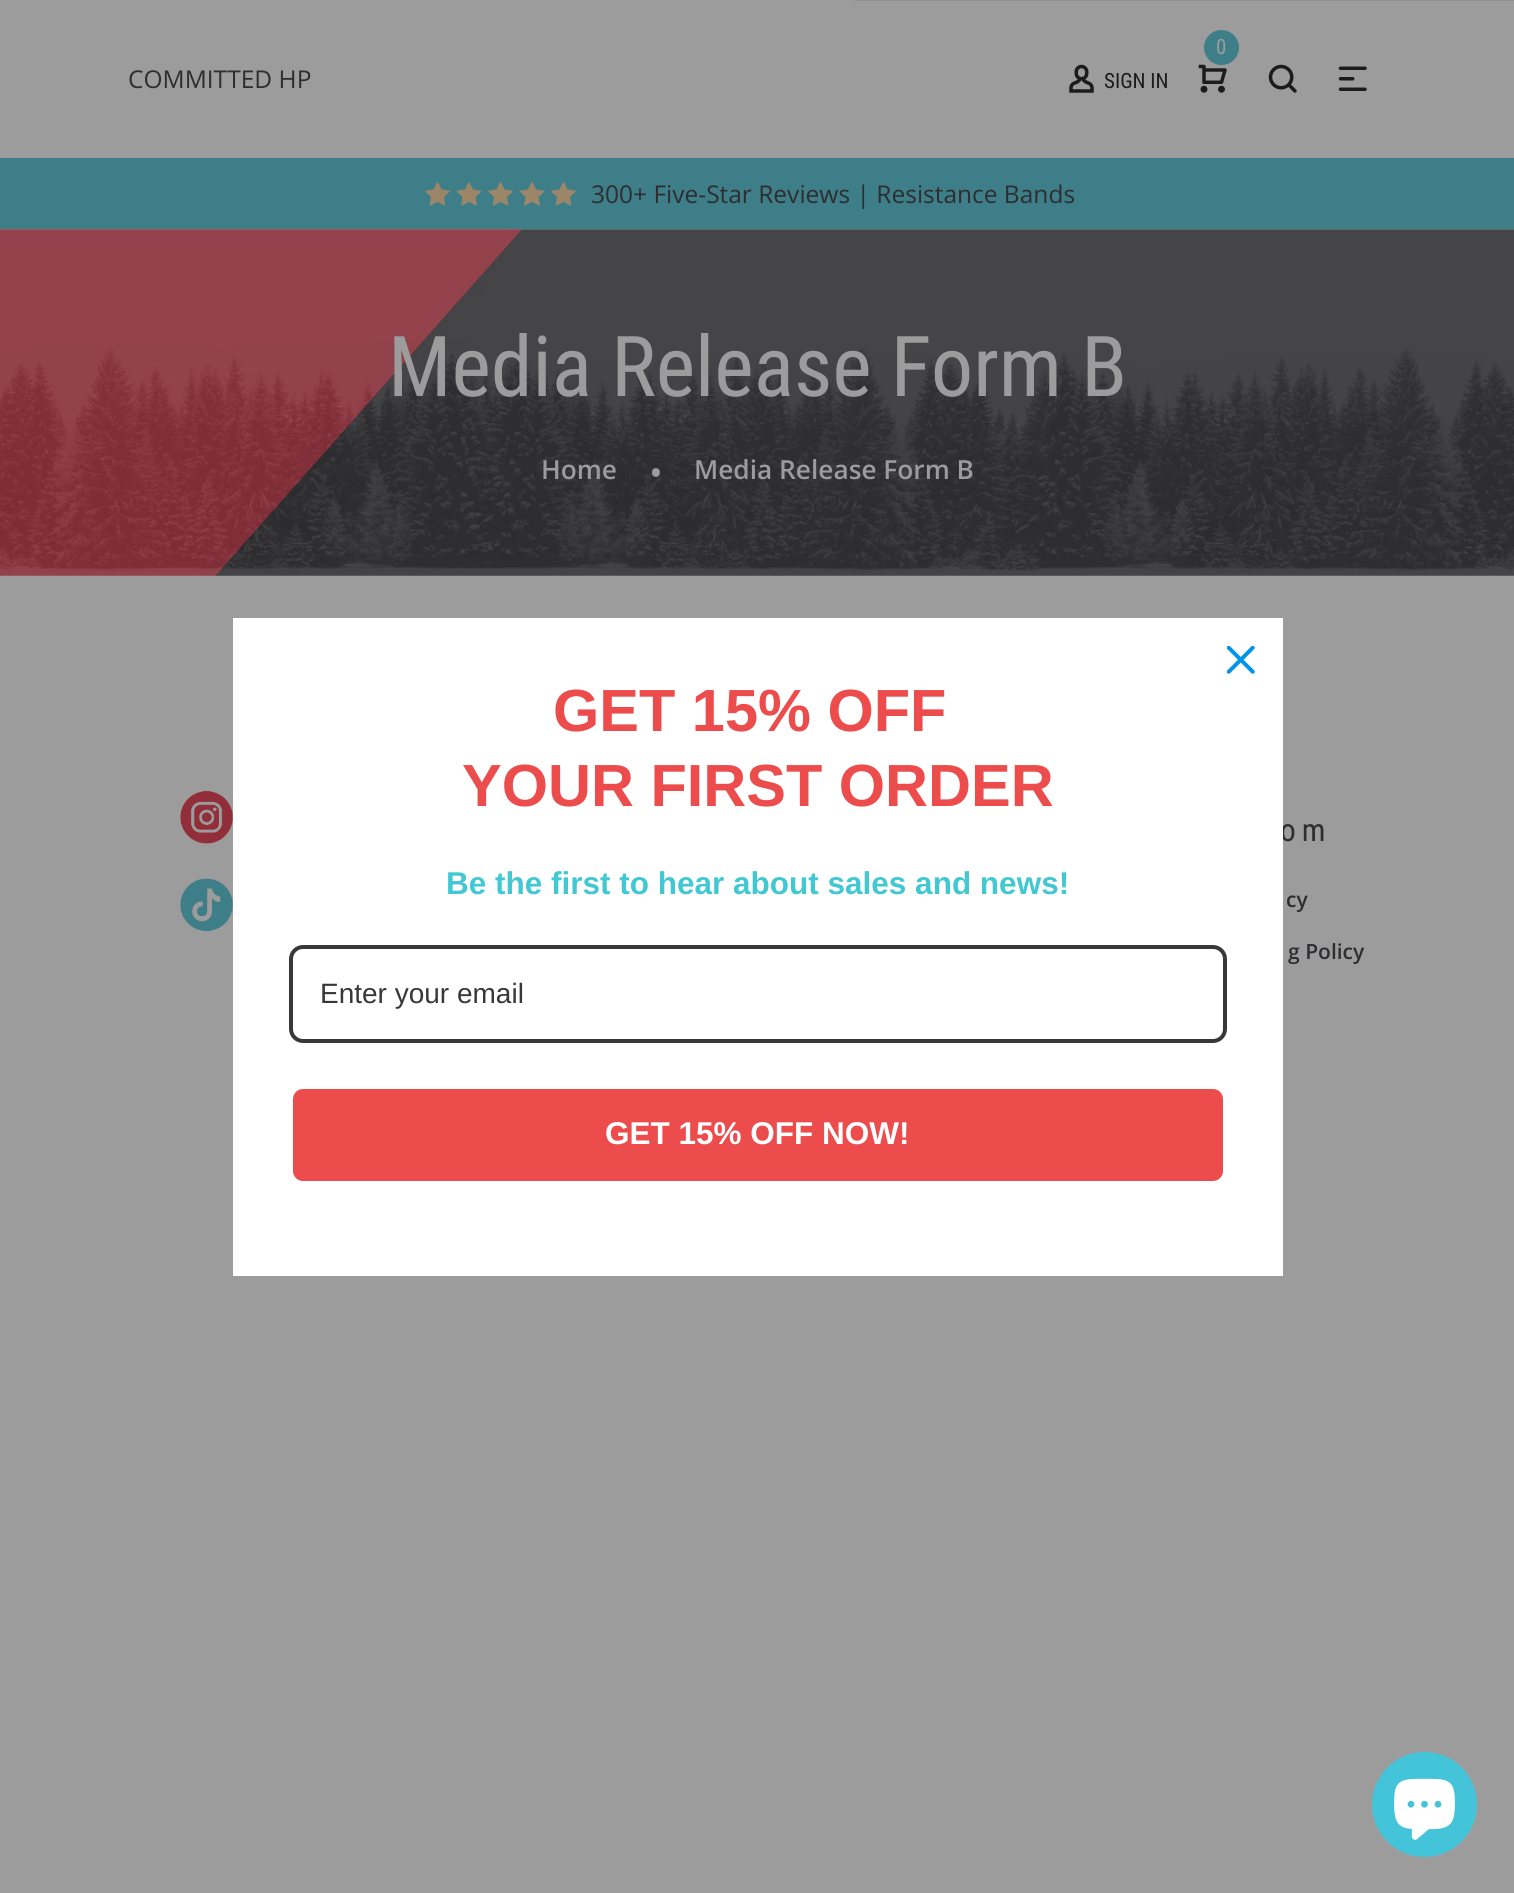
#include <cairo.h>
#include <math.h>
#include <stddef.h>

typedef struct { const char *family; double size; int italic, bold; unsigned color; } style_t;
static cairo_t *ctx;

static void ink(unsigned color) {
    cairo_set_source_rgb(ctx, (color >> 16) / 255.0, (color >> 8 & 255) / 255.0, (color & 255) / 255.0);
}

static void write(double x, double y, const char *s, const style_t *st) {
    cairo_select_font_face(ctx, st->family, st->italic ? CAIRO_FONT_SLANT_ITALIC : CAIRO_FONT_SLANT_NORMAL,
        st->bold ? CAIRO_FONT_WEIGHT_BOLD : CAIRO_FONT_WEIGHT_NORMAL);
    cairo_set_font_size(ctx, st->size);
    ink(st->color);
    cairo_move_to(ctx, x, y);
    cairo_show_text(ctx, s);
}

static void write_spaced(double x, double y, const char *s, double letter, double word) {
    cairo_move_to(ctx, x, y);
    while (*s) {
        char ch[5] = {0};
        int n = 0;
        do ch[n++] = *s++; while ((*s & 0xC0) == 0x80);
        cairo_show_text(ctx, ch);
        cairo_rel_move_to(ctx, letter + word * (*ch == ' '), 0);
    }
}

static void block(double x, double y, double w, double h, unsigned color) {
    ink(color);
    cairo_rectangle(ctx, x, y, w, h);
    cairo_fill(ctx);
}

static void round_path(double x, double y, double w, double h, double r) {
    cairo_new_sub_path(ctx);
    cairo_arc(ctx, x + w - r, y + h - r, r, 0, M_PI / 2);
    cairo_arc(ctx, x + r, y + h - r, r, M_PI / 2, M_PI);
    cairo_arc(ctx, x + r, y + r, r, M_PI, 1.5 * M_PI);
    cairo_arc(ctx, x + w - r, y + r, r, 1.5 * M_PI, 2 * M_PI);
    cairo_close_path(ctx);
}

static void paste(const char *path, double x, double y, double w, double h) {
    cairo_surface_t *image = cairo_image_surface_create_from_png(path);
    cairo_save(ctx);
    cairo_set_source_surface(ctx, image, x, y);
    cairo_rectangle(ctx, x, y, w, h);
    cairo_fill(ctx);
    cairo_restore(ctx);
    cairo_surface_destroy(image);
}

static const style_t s1 = {"Open Sans", 24.5, 0, 0, 0x2e2d30};
static const style_t s2 = {"Roboto Condensed", 21, 0, 0, 0x9c9c9c};
static const style_t s3 = {"Roboto Condensed", 21, 0, 0, 0x1c1c1c};
static const style_t s4 = {"Roboto Condensed", 84, 0, 0, 0x9c9c9c};
static const style_t s5 = {"Open Sans SemiBold", 26.25, 0, 0, 0x9c9c9c};
static const style_t s6 = {"Open Sans SemiBold", 31.5, 0, 0, 0x9c9c9c};
static const style_t s7 = {"Open Sans SemiBold", 21, 0, 0, 0x2e2d30};
static const style_t s8 = {"Liberation Sans", 59.5, 0, 1, 0xec4c4b};
static const style_t s9 = {"Liberation Sans", 31.5, 0, 1, 0x42c8d2};
static const style_t s10 = {"Liberation Sans", 28, 0, 0, 0x383838};
static const style_t s11 = {"Liberation Sans", 31.5, 0, 1, 0xffffff};

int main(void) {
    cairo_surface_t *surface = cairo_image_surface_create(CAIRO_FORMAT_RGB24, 1514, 1893);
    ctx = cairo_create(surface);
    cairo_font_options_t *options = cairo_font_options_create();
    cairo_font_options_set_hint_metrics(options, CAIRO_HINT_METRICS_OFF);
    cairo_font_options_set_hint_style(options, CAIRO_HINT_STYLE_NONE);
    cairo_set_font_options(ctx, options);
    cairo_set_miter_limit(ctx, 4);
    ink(0x9c9c9c);
    cairo_paint(ctx);
    block(854, 0, 660, 1, 0x909192);
    write(128, 88, "COMMITTED HP", &s1);
    paste("pic1.png", 1198, 64, 29, 29);
    ink(0x3e7e88);
    cairo_arc(ctx, 1221.5, 47.5, 17.5, 0, 2 * M_PI);
    cairo_fill(ctx);
    write(1216, 54, "0", &s2);
    paste("pic2.png", 1069, 64, 25, 29);
    write(1104, 88, "SIGN IN", &s3);
    paste("pic3.png", 1268, 64, 29, 29);
    paste("pic4.png", 1338, 66, 29, 25);
    block(0, 158, 1514, 71, 0x3e7e88);
    paste("pic5.png", 425, 182, 25, 24);
    paste("pic6.png", 456, 182, 26, 24);
    paste("pic5.png", 488, 182, 25, 24);
    paste("pic6.png", 519, 182, 26, 24);
    paste("pic5.png", 551, 182, 25, 24);
    write(591, 203, "300+ Five-Star Reviews | Resistance Bands", &s1);
    paste("pic7.png", 0, 229, 1514, 347);
    write(388, 396, "Media Release Form B", &s4);
    write(541, 479, "Home", &s5);
    write(650, 484, "•", &s6);
    write(694, 479, "Media Release Form B", &s5);
    paste("pic8.png", 180, 790, 53, 54);
    paste("pic9.png", 180, 878, 53, 54);
    cairo_select_font_face(ctx, "Roboto Condensed", CAIRO_FONT_SLANT_NORMAL, CAIRO_FONT_WEIGHT_NORMAL);
    cairo_set_font_size(ctx, 31.5);
    ink(0x2e2d30);
    write_spaced(1280, 841, "om", 6, 0);
    write(1286, 907, "cy", &s7);
    write(1288, 959, "g Policy", &s7);
    block(233, 618, 1050, 658, 0xffffff);
    paste("pic10.png", 1227, 646, 28, 28);
    write(553, 731, "GET 15% OFF", &s8);
    write(462, 806, "YOUR FIRST ORDER", &s8);
    write(446, 894, "Be the first to hear about sales and news!", &s9);
    round_path(291, 947, 934, 94, 12);
    ink(0x383838);
    cairo_set_line_width(ctx, 4);
    cairo_stroke(ctx);
    write(320, 1003, "Enter your email", &s10);
    ink(0xec4c4b);
    round_path(291, 1087, 934, 96, 12);
    cairo_fill_preserve(ctx);
    ink(0xffffff);
    cairo_stroke(ctx);
    write(605, 1144, "GET 15% OFF NOW!", &s11);
    ink(0x44c4d8);
    cairo_new_path(ctx);
    cairo_arc(ctx, 1424.5, 1804.5, 52.5, 0, 2 * M_PI);
    cairo_fill(ctx);
    paste("pic11.png", 1394, 1778, 61, 62);
    cairo_surface_write_to_png(surface, "screenshot.png");
    cairo_font_options_destroy(options);
    cairo_destroy(ctx);
    cairo_surface_destroy(surface);
    return 0;
}
